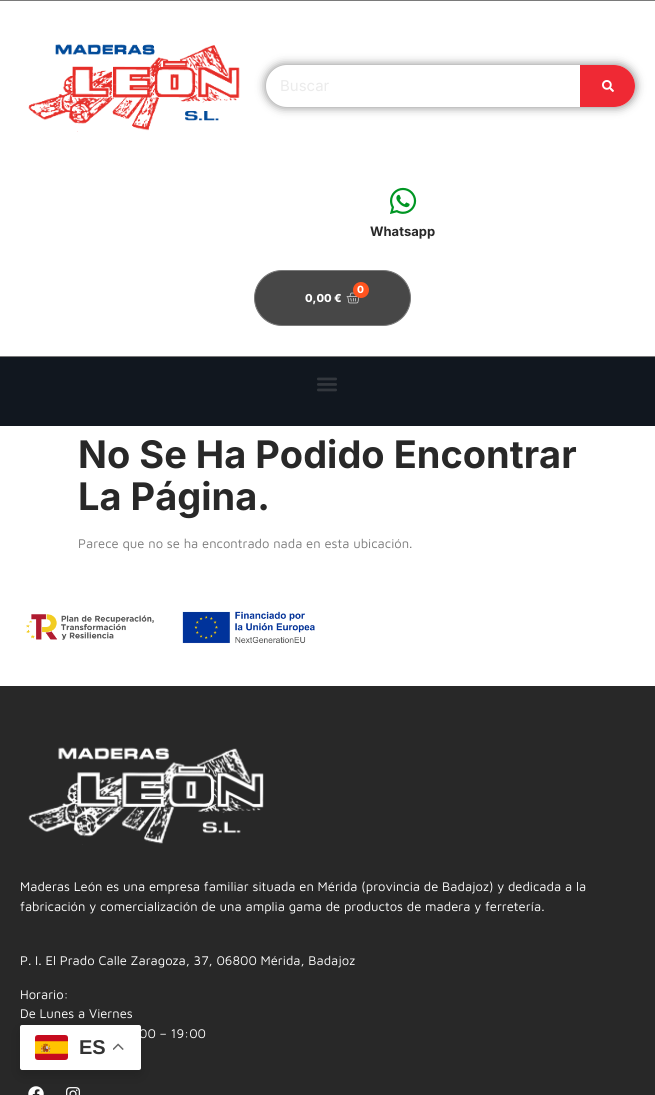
#include <cairo.h>
#include <math.h>
#include <stddef.h>

typedef struct { const char *family; double size; int italic, bold; unsigned color; } style_t;
static cairo_t *ctx;

static void ink(unsigned color) {
    cairo_set_source_rgb(ctx, (color >> 16) / 255.0, (color >> 8 & 255) / 255.0, (color & 255) / 255.0);
}

static void write(double x, double y, const char *s, const style_t *st) {
    cairo_select_font_face(ctx, st->family, st->italic ? CAIRO_FONT_SLANT_ITALIC : CAIRO_FONT_SLANT_NORMAL,
        st->bold ? CAIRO_FONT_WEIGHT_BOLD : CAIRO_FONT_WEIGHT_NORMAL);
    cairo_set_font_size(ctx, st->size);
    ink(st->color);
    cairo_move_to(ctx, x, y);
    cairo_show_text(ctx, s);
}

static void block(double x, double y, double w, double h, unsigned color) {
    ink(color);
    cairo_rectangle(ctx, x, y, w, h);
    cairo_fill(ctx);
}

static void round_path(double x, double y, double w, double h, double r) {
    cairo_new_sub_path(ctx);
    cairo_arc(ctx, x + w - r, y + h - r, r, 0, M_PI / 2);
    cairo_arc(ctx, x + r, y + h - r, r, M_PI / 2, M_PI);
    cairo_arc(ctx, x + r, y + r, r, M_PI, 1.5 * M_PI);
    cairo_arc(ctx, x + w - r, y + r, r, 1.5 * M_PI, 2 * M_PI);
    cairo_close_path(ctx);
}

static void blur_box(double x, double y, double w, double h, double r, double blur, double alpha) {
    cairo_push_group_with_content(ctx, CAIRO_CONTENT_ALPHA);
    cairo_set_operator(ctx, CAIRO_OPERATOR_SOURCE);
    for (int i = 15; i >= -15 && fmin(w, h) + blur * i / 3 > 0; i -= 2) {
        double e = blur * i / 6;
        cairo_set_source_rgba(ctx, 0, 0, 0, alpha * erfc((i - 1) / 8.5) / 2);
        round_path(x - e, y - e, w + 2 * e, h + 2 * e, fmax(0, fmin(r + e + blur * .6, fmin(w, h) / 2 + e)));
        cairo_fill(ctx);
    }
    cairo_pattern_t *soft = cairo_pop_group(ctx);
    cairo_mask(ctx, soft);
    cairo_pattern_destroy(soft);
}

static void paste(const char *path, double x, double y, double w, double h) {
    cairo_surface_t *image = cairo_image_surface_create_from_png(path);
    cairo_save(ctx);
    cairo_set_source_surface(ctx, image, x, y);
    cairo_rectangle(ctx, x, y, w, h);
    cairo_fill(ctx);
    cairo_restore(ctx);
    cairo_surface_destroy(image);
}

static const style_t s1 = {"Inter", 15, 0, 0, 0xebebeb};
static const style_t s2 = {"Inter", 13, 0, 1, 0x282828};
static const style_t s3 = {"Inter ExtraBold", 10, 0, 0, 0xffffff};
static const style_t s4 = {"Inter ExtraBold", 11, 0, 0, 0xffffff};
static const style_t s5 = {"Inter", 38, 0, 1, 0x282828};
static const style_t s6 = {"Maven Pro", 13, 0, 0, 0x7a7a7a};
static const style_t s7 = {"Maven Pro", 13, 0, 0, 0xffffff};
static const style_t s8 = {"Liberation Sans", 20, 0, 1, 0x333333};

int main(void) {
    cairo_surface_t *surface = cairo_image_surface_create(CAIRO_FORMAT_RGB24, 655, 1095);
    ctx = cairo_create(surface);
    cairo_font_options_t *options = cairo_font_options_create();
    cairo_font_options_set_hint_metrics(options, CAIRO_HINT_METRICS_OFF);
    cairo_font_options_set_hint_style(options, CAIRO_HINT_STYLE_NONE);
    cairo_set_font_options(ctx, options);
    cairo_set_miter_limit(ctx, 4);
    ink(0xffffff);
    cairo_paint(ctx);
    block(0, 0, 655, 1, 0x7a7a7a);
    block(0, 356, 655, 1, 0x7a7a7a);
    paste("pic1.png", 28, 44, 212, 88);
    ink(0x000000);
    blur_box(266, 65, 369, 42, 21, 5, 0.5);
    ink(0xffffff);
    round_path(266, 65, 369, 42, 21);
    cairo_fill(ctx);
    write(280, 91, "Buscar", &s1);
    ink(0xef2934);
    cairo_new_path(ctx);
    cairo_move_to(ctx, 580, 65);
    cairo_line_to(ctx, 614, 65);
    cairo_curve_to(ctx, 625.5, 65, 635, 74.5, 635, 86);
    cairo_curve_to(ctx, 635, 97.5, 625.5, 107, 614, 107);
    cairo_line_to(ctx, 580, 107);
    cairo_close_path(ctx);
    cairo_fill(ctx);
    paste("pic2.png", 602, 80, 12, 12);
    paste("pic3.png", 390, 187, 27, 27);
    write(370, 236, "Whatsapp", &s2);
    ink(0x474747);
    round_path(254.5, 270.5, 156, 55, 27.5);
    cairo_fill_preserve(ctx);
    ink(0x7a7a7a);
    cairo_set_line_width(ctx, 1);
    cairo_stroke(ctx);
    paste("pic4.png", 346, 292, 13, 12);
    ink(0xff541f);
    cairo_arc(ctx, 361, 290, 8, 0, 2 * M_PI);
    cairo_fill(ctx);
    write(357, 293, "0", &s3);
    write(305, 302, "0,00 €", &s4);
    block(0, 357, 655, 69, 0x11171f);
    paste("pic5.png", 317, 377, 20, 15);
    write(78, 468, "No Se Ha Podido Encontrar", &s5);
    write(78, 510, "La Página.", &s5);
    write(78, 548, "Parece que no se ha encontrado nada en esta ubicación.", &s6);
    paste("pic6.png", 26, 614, 128, 26);
    paste("pic7.png", 182, 611, 133, 33);
    block(0, 686, 655, 409, 0x282828);
    paste("pic8.png", 28, 747, 236, 98);
    write(20, 891, "Maderas León es una empresa familiar situada en Mérida (provincia de Badajoz) y dedicada a la", &s7);
    write(20, 911, "fabricación y comercialización de una amplia gama de productos de madera y ferretería.", &s7);
    write(20, 965, "P. I. El Prado Calle Zaragoza, 37, 06800 Mérida, Badajoz", &s7);
    write(20, 999, "Horario:", &s7);
    write(20, 1018, "De Lunes a Viernes", &s7);
    write(139, 1038, "00 – 19:00", &s7);
    paste("pic9.png", 28, 1086, 16, 9);
    paste("pic10.png", 66, 1087, 14, 8);
    ink(0x000000);
    blur_box(20, 1030, 121, 45, 2, 7.5, 0.15);
    ink(0xffffff);
    round_path(20, 1025, 121, 45, 2);
    cairo_fill(ctx);
    paste("pic11.png", 35, 1035, 33, 25);
    write(79, 1054, "ES", &s8);
    paste("pic12.png", 113, 1043, 11, 7);
    cairo_surface_write_to_png(surface, "screenshot.png");
    cairo_font_options_destroy(options);
    cairo_destroy(ctx);
    cairo_surface_destroy(surface);
    return 0;
}
